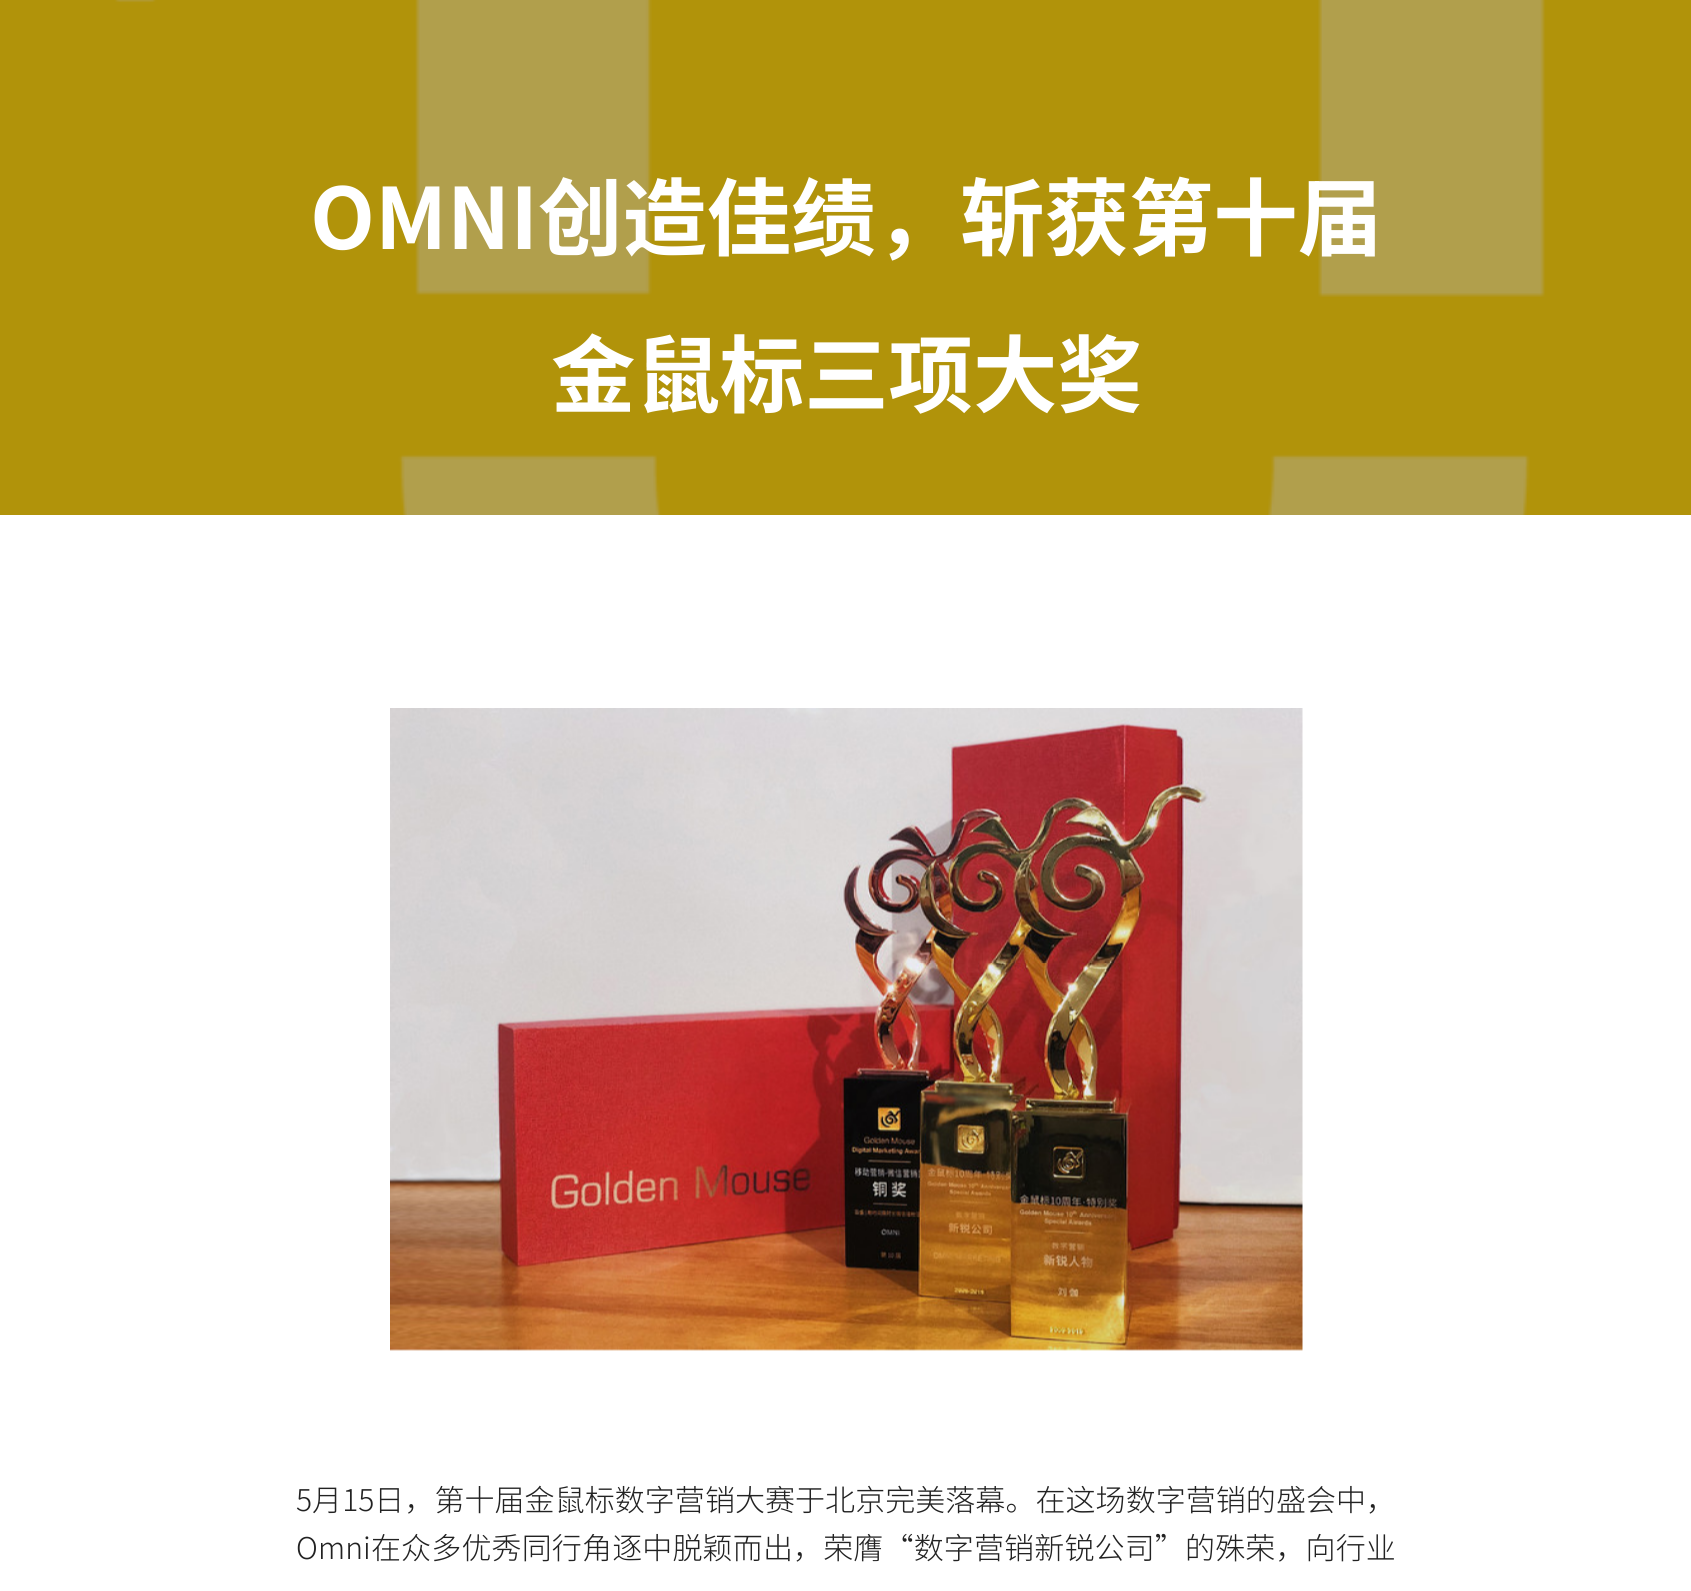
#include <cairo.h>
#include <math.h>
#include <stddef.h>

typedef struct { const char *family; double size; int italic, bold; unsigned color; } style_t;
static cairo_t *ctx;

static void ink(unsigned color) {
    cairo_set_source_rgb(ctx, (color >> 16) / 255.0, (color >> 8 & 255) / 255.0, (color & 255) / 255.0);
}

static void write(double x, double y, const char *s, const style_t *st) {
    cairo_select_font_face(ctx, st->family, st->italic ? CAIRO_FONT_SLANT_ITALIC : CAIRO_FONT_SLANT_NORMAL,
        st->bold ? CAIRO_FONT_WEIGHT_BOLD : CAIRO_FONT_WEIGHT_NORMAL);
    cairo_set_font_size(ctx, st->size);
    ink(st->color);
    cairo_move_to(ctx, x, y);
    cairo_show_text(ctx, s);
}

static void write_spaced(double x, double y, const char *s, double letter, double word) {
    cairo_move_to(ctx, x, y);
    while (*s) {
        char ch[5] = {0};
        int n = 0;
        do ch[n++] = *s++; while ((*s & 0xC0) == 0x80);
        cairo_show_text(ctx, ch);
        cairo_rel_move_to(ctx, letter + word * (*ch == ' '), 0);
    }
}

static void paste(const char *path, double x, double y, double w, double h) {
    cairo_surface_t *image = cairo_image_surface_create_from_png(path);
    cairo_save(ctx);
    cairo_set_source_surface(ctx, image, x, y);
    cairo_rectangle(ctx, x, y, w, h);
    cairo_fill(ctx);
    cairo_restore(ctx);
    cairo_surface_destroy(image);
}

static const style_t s1 = {"Noto Sans SC", 84.4, 0, 1, 0xffffff};

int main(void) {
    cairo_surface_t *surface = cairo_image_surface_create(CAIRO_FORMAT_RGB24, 1691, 1591);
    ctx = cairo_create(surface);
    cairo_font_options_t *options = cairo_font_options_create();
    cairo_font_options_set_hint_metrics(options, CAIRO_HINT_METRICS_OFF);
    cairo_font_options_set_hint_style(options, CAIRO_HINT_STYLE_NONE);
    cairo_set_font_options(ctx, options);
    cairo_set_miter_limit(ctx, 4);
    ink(0xffffff);
    cairo_paint(ctx);
    paste("pic1.png", 0, 0, 1691, 515);
    write(310, 249, "OMNI创造佳绩，斩获第十届", &s1);
    write(551, 406, "金鼠标三项大奖", &s1);
    paste("pic2.png", 390, 708, 913, 643);
    cairo_select_font_face(ctx, "Noto Sans SC Light", CAIRO_FONT_SLANT_NORMAL, CAIRO_FONT_WEIGHT_NORMAL);
    cairo_set_font_size(ctx, 30);
    ink(0x222222);
    write_spaced(296, 1511, "5月15日，第十届金鼠标数字营销大赛于北京完美落幕。在这场数字营销的盛会中，", 0.05, 0);
    write_spaced(296, 1559, "Omni在众多优秀同行角逐中脱颖而出，荣膺“数字营销新锐公司”的殊荣，向行业", 0.15, 0);
    cairo_surface_write_to_png(surface, "screenshot.png");
    cairo_font_options_destroy(options);
    cairo_destroy(ctx);
    cairo_surface_destroy(surface);
    return 0;
}
